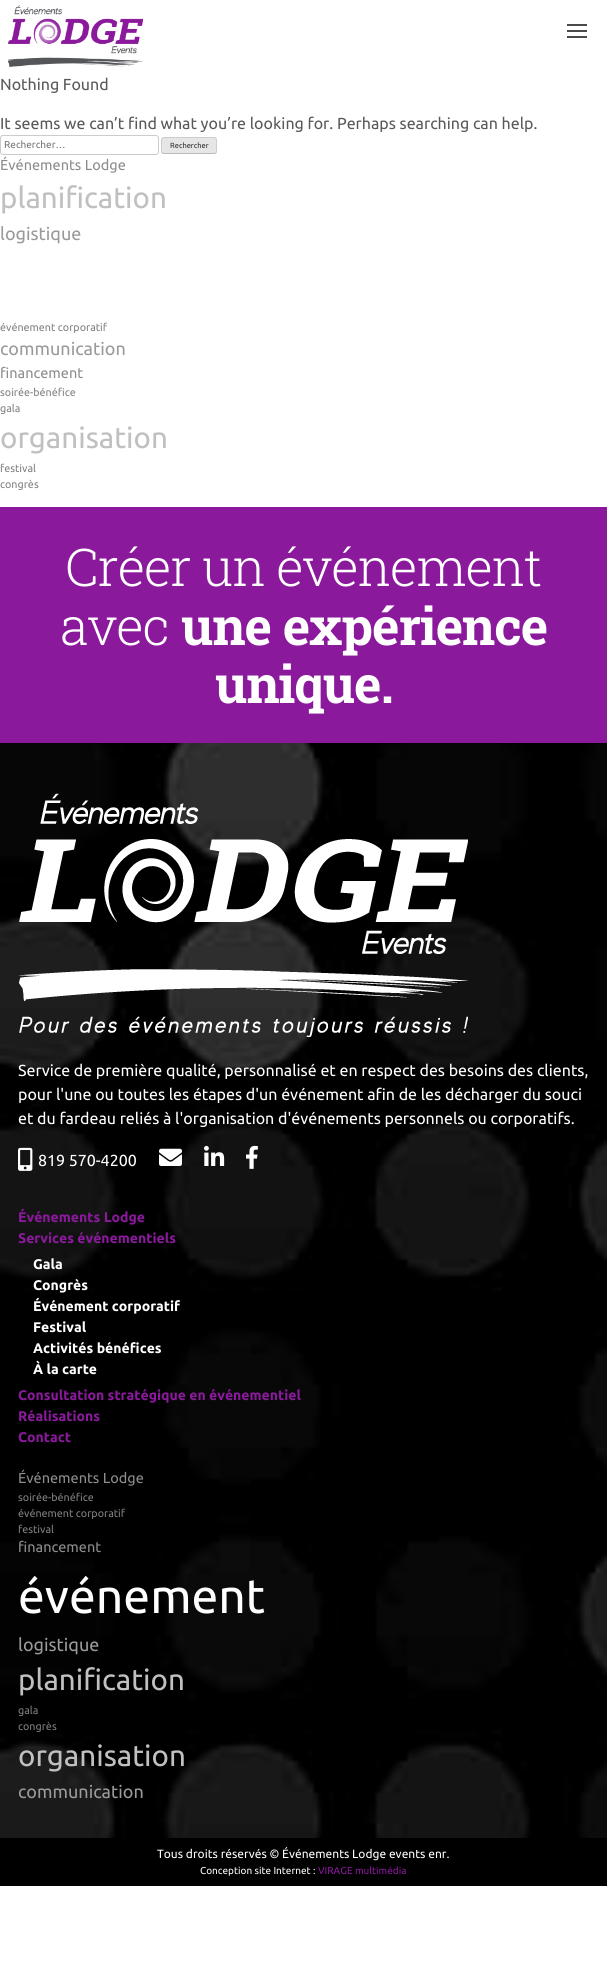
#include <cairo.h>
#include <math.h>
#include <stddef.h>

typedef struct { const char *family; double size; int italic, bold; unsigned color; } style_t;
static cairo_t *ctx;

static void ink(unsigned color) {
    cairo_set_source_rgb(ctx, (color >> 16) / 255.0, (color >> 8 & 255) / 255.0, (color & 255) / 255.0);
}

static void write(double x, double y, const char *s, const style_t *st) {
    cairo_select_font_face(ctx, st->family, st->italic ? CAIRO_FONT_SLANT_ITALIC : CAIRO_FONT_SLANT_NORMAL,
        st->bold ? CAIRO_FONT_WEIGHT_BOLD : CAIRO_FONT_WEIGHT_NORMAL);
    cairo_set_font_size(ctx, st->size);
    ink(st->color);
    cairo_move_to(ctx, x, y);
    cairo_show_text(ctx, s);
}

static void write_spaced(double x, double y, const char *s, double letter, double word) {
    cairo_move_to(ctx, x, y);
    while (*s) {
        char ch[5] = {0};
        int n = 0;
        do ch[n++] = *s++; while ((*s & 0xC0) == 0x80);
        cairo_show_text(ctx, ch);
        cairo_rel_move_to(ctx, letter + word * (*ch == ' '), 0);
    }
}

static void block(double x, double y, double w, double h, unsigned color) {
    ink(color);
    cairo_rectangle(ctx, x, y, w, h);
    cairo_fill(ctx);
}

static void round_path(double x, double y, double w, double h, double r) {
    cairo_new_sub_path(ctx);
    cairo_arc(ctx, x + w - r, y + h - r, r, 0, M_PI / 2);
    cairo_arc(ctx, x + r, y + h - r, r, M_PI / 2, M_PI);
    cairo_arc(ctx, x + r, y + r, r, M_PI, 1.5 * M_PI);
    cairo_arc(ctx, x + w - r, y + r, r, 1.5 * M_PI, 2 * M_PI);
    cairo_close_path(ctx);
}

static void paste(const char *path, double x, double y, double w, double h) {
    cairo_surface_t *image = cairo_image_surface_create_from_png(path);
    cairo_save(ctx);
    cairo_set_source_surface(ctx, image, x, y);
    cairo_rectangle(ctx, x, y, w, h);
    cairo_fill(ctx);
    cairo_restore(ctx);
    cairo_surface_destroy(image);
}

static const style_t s1 = {"Ubuntu", 16, 0, 0, 0x58595b};
static const style_t s2 = {"Ubuntu", 10, 0, 0, 0x757575};
static const style_t s3 = {"Ubuntu", 7.5, 0, 0, 0x2e2e2e};
static const style_t s4 = {"Ubuntu", 14.5, 0, 0, 0x8d8d8d};
static const style_t s5 = {"Ubuntu", 29.5, 0, 0, 0xc0c0c0};
static const style_t s6 = {"Ubuntu", 18, 0, 0, 0x9a9a9a};
static const style_t s7 = {"Ubuntu", 10.75, 0, 0, 0x818181};
static const style_t s8 = {"Ubuntu", 16, 0, 0, 0xffffff};
static const style_t s9 = {"Ubuntu", 14, 0, 1, 0x8a199c};
static const style_t s10 = {"Ubuntu", 14, 0, 1, 0xffffff};
static const style_t s11 = {"Ubuntu", 48, 0, 0, 0xffffff};
static const style_t s12 = {"Ubuntu", 12, 0, 0, 0xffffff};
static const style_t s13 = {"Ubuntu", 10, 0, 0, 0xffffff};
static const style_t s14 = {"Ubuntu", 10, 0, 0, 0x8a199c};

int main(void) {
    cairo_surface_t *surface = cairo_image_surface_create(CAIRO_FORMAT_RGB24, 607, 1980);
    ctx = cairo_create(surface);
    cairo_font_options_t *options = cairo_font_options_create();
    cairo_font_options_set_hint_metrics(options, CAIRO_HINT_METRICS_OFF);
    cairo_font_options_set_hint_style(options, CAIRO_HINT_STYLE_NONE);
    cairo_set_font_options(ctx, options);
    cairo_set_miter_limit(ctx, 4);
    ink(0xffffff);
    cairo_paint(ctx);
    paste("pic1.png", 8, 5, 135, 62);
    block(567, 24, 20, 2, 0x4a4a4a);
    block(567, 30, 20, 2, 0x4a4a4a);
    block(567, 36, 20, 2, 0x4a4a4a);
    write(0, 90, "Nothing Found", &s1);
    write(0, 129, "It seems we can’t find what you’re looking for. Perhaps searching can help.", &s1);
    round_path(0.5, 135.5, 158, 19, 2.5);
    ink(0xcccccc);
    cairo_set_line_width(ctx, 1);
    cairo_stroke(ctx);
    write(4, 148, "Rechercher…", &s2);
    ink(0xe6e6e6);
    round_path(161, 137, 56, 17, 3);
    cairo_fill(ctx);
    cairo_new_path(ctx);
    cairo_move_to(ctx, 216, 153);
    cairo_line_to(ctx, 214, 153.5);
    cairo_line_to(ctx, 164, 153.5);
    cairo_line_to(ctx, 162, 153);
    ink(0xbbbbbb);
    cairo_stroke(ctx);
    cairo_new_path(ctx);
    cairo_move_to(ctx, 162, 153);
    cairo_curve_to(ctx, 161, 151.5, 161.5, 149, 161.5, 147.5);
    cairo_curve_to(ctx, 161.5, 136, 160, 137.5, 172.5, 137.5);
    cairo_line_to(ctx, 205.5, 137.5);
    cairo_curve_to(ctx, 218, 137.5, 216.5, 136, 216.5, 147.5);
    cairo_curve_to(ctx, 216.5, 149, 217, 151.5, 216, 153);
    ink(0xcccccc);
    cairo_stroke(ctx);
    write(170, 148, "Rechercher", &s3);
    write(0, 170, "Événements Lodge", &s4);
    write(0, 208, "planification", &s5);
    write(0, 240, "logistique", &s6);
    write(0, 331, "événement corporatif", &s7);
    write(0, 355, "communication", &s6);
    write(0, 378, "financement", &s4);
    write(0, 396, "soirée-bénéfice", &s7);
    write(0, 412, "gala", &s7);
    write(0, 448, "organisation", &s5);
    write(0, 472, "festival", &s7);
    write(0, 488, "congrès", &s7);
    paste("pic2.png", 0, 743, 607, 1095);
    block(0, 507, 607, 236, 0x8a199c);
    cairo_select_font_face(ctx, "Roboto Slab Light", CAIRO_FONT_SLANT_NORMAL, CAIRO_FONT_WEIGHT_NORMAL);
    cairo_set_font_size(ctx, 52);
    ink(0xffffff);
    write_spaced(65, 586, "Créer un événement", -1, 0);
    write_spaced(60, 645, "avec", -1, 0);
    cairo_select_font_face(ctx, "Roboto Slab", CAIRO_FONT_SLANT_NORMAL, CAIRO_FONT_WEIGHT_BOLD);
    write_spaced(181, 645, "une expérience", -1, 0);
    write_spaced(215, 703, "unique.", -1, 0);
    paste("pic3.png", 18, 793, 450, 244);
    write(18, 1076, "Service de première qualité, personnalisé et en respect des besoins des clients,", &s8);
    write(18, 1100, "pour l'une ou toutes les étapes d'un événement afin de les décharger du souci", &s8);
    write(18, 1124, "et du fardeau reliés à l'organisation d'événements personnels ou corporatifs.", &s8);
    paste("pic4.png", 18, 1147, 15, 24);
    write(38, 1166, "819 570-4200", &s8);
    paste("pic5.png", 159, 1148, 23, 18);
    paste("pic6.png", 204, 1145, 21, 21);
    paste("pic7.png", 246, 1145, 12, 24);
    write(18, 1222, "Événements Lodge", &s9);
    write(18, 1243, "Services événementiels", &s9);
    write(33, 1269, "Gala", &s10);
    write(33, 1290, "Congrès", &s10);
    write(33, 1311, "Événement corporatif", &s10);
    write(33, 1332, "Festival", &s10);
    write(33, 1353, "Activités bénéfices", &s10);
    write(33, 1374, "À la carte", &s10);
    write(18, 1400, "Consultation stratégique en événementiel", &s9);
    write(18, 1421, "Réalisations", &s9);
    write(18, 1442, "Contact", &s9);
    write(18, 1483, "Événements Lodge", &s4);
    write(18, 1501, "soirée-bénéfice", &s7);
    write(18, 1517, "événement corporatif", &s7);
    write(18, 1533, "festival", &s7);
    write(18, 1552, "financement", &s4);
    write(18, 1613, "événement", &s11);
    write(18, 1651, "logistique", &s6);
    write(18, 1690, "planification", &s5);
    write(18, 1714, "gala", &s7);
    write(18, 1730, "congrès", &s7);
    write(18, 1766, "organisation", &s5);
    write(18, 1798, "communication", &s6);
    block(0, 1838, 607, 48, 0x000000);
    write(157, 1858, "Tous droits réservés © Événements Lodge events enr.", &s12);
    write(200, 1874, "Conception site Internet :", &s13);
    write(318, 1874, "VIRAGE multimédia", &s14);
    cairo_surface_write_to_png(surface, "screenshot.png");
    cairo_font_options_destroy(options);
    cairo_destroy(ctx);
    cairo_surface_destroy(surface);
    return 0;
}
